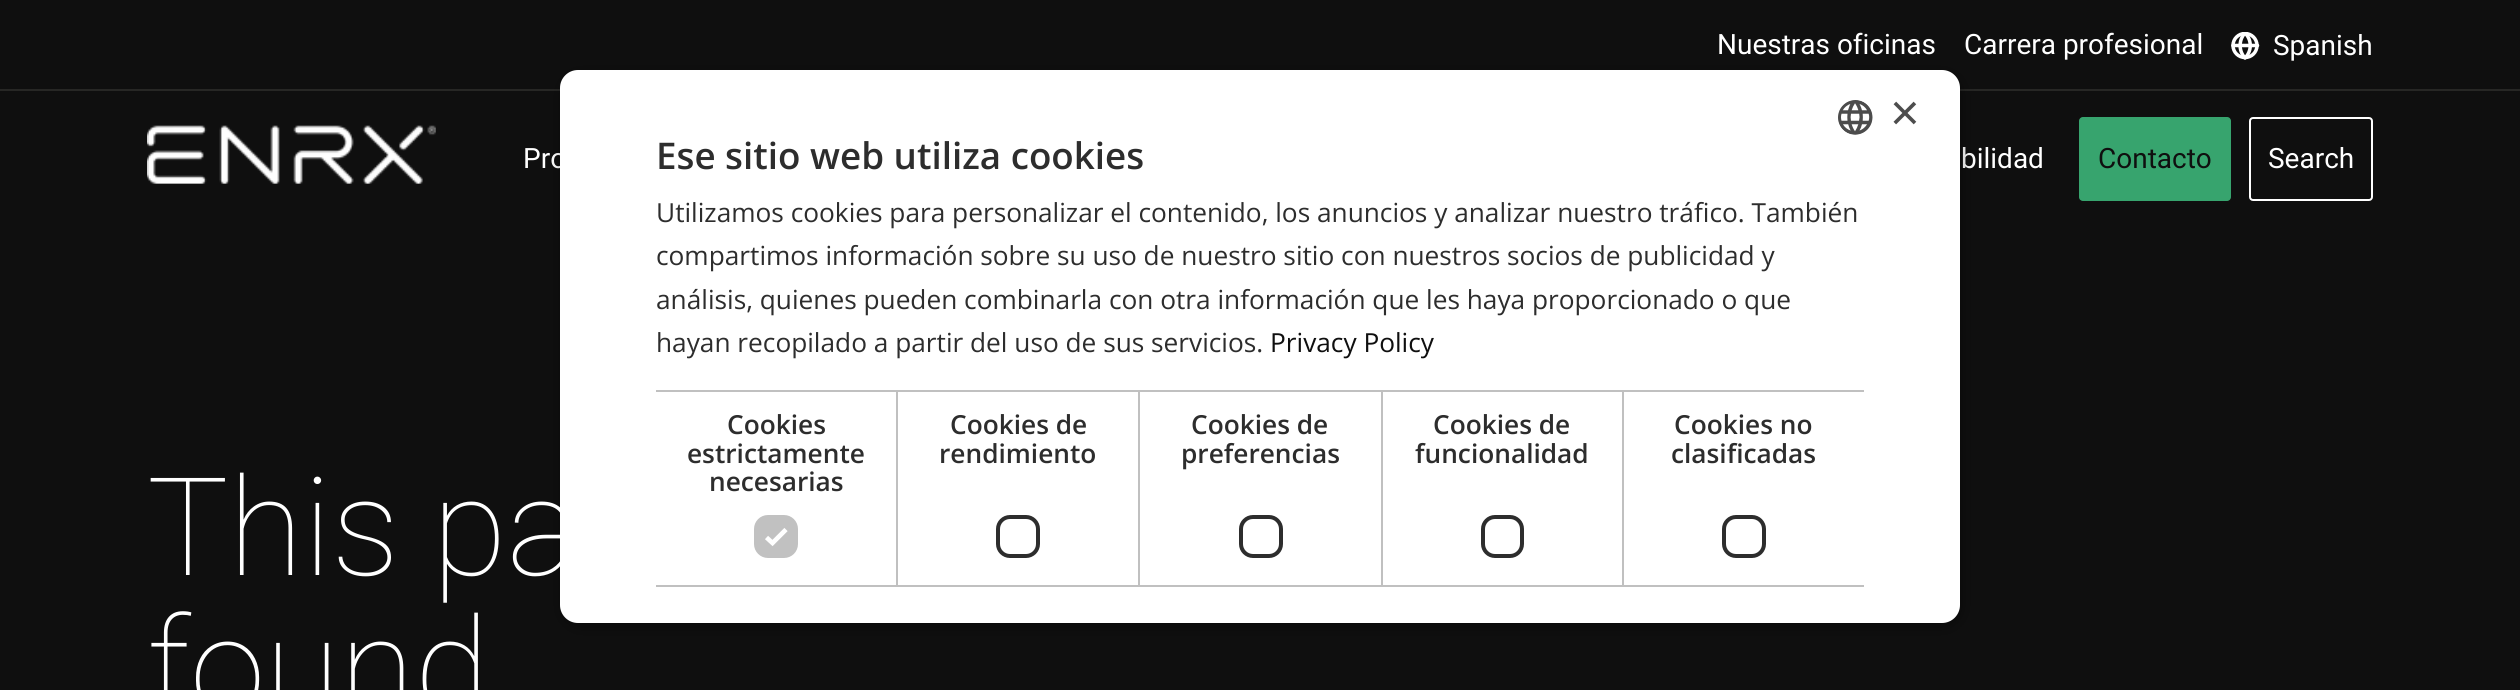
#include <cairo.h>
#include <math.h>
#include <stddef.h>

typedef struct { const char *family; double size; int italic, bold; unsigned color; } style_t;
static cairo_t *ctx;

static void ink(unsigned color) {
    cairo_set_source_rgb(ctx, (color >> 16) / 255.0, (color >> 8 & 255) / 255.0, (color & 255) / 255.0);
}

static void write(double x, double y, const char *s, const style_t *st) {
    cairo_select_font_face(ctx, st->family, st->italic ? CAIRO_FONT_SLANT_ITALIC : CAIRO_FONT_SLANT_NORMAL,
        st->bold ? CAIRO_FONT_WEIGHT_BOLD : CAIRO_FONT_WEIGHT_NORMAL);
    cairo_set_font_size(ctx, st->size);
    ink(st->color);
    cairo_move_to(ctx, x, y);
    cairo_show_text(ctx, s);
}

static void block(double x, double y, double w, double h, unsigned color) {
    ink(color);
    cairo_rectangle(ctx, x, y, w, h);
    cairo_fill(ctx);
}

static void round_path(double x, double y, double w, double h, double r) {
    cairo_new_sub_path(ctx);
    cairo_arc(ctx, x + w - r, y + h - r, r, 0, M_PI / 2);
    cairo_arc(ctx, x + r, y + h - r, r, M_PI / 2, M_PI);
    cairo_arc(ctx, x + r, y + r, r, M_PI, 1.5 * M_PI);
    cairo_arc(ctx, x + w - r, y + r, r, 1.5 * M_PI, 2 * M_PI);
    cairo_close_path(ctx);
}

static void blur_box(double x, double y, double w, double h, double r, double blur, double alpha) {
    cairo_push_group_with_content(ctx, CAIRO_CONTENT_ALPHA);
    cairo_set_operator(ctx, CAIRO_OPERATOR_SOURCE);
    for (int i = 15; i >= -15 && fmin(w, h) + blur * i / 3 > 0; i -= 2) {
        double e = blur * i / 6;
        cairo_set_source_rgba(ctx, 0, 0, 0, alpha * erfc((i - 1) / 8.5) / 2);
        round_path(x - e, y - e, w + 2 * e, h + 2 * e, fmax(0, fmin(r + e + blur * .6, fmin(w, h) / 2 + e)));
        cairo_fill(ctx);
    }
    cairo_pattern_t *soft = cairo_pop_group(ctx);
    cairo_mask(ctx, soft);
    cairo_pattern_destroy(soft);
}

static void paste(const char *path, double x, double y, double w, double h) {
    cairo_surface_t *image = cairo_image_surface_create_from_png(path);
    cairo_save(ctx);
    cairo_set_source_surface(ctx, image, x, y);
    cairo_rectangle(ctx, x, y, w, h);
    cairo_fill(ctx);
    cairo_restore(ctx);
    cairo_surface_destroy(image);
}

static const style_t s1 = {"Roboto", 28, 0, 0, 0xffffff};
static const style_t s2 = {"Roboto", 28, 0, 0, 0x0f0f0f};
static const style_t s3 = {"Liberation Sans", 51, 0, 0, 0x4d4d4d};
static const style_t s4 = {"Open Sans SemiBold", 36.75, 0, 0, 0x2d2d2d};
static const style_t s5 = {"Open Sans", 26.25, 0, 0, 0x2d2d2d};
static const style_t s6 = {"Open Sans", 26.25, 0, 0, 0x0f0f0f};
static const style_t s7 = {"Open Sans SemiBold", 26.25, 0, 0, 0x2d2d2d};
static const style_t s8 = {"Roboto Thin", 136.5, 0, 0, 0xffffff};

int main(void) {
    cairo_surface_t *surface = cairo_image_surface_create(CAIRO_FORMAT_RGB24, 2520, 690);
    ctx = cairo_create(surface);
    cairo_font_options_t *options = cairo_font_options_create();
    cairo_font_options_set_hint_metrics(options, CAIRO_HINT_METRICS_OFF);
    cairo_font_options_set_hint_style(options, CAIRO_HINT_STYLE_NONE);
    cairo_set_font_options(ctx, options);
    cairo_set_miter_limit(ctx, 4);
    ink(0x0f0f0f);
    cairo_paint(ctx);
    write(1717, 54, "Nuestras oficinas", &s1);
    write(1964, 54, "Carrera profesional", &s1);
    cairo_save(ctx);
    cairo_rectangle(ctx, 2231, 32, 28, 28);
    cairo_clip(ctx);
    cairo_arc(ctx, 2245, 45.5, 12, 0, 2 * M_PI);
    cairo_set_line_width(ctx, 3.5);
    cairo_stroke(ctx);
    cairo_restore(ctx);
    cairo_new_path(ctx);
    cairo_move_to(ctx, 2233, 45.5);
    cairo_line_to(ctx, 2257.5, 45.5);
    cairo_set_line_width(ctx, 3.5);
    cairo_set_line_cap(ctx, CAIRO_LINE_CAP_ROUND);
    cairo_set_line_join(ctx, CAIRO_LINE_JOIN_ROUND);
    cairo_stroke(ctx);
    cairo_save(ctx);
    cairo_rectangle(ctx, 2231, 32, 28, 28);
    cairo_clip(ctx);
    cairo_new_path(ctx);
    cairo_move_to(ctx, 2245, 33);
    cairo_curve_to(ctx, 2252, 40, 2252, 51, 2245, 58);
    cairo_curve_to(ctx, 2238.5, 51, 2238.5, 40, 2245, 33);
    cairo_close_path(ctx);
    cairo_stroke(ctx);
    cairo_restore(ctx);
    write(2273, 55, "Spanish", &s1);
    block(0, 89, 2520, 2, 0x272725);
    paste("pic1.png", 147, 125, 289, 59);
    write(523, 168, "Pro", &s1);
    write(1961, 168, "bilidad", &s1);
    ink(0x37a46e);
    round_path(2079, 117, 152, 84, 4);
    cairo_fill(ctx);
    write(2098, 168, "Contacto", &s2);
    round_path(2250, 118, 122, 82, 3);
    ink(0xffffff);
    cairo_set_line_width(ctx, 2);
    cairo_set_line_cap(ctx, CAIRO_LINE_CAP_BUTT);
    cairo_set_line_join(ctx, CAIRO_LINE_JOIN_MITER);
    cairo_stroke(ctx);
    write(2268, 168, "Search", &s1);
    ink(0x000000);
    blur_box(562, 74, 1400, 553, 18, 7, 0.35);
    ink(0xffffff);
    round_path(560, 70, 1400, 553, 18);
    cairo_fill(ctx);
    paste("pic2.png", 1838, 100, 35, 35);
    write(1890, 130, "×", &s3);
    write(656, 169, "Ese sitio web utiliza cookies", &s4);
    write(656, 222, "Utilizamos cookies para personalizar el contenido, los anuncios y analizar nuestro tráfico. También", &s5);
    write(656, 265, "compartimos información sobre su uso de nuestro sitio con nuestros socios de publicidad y", &s5);
    write(656, 309, "análisis, quienes pueden combinarla con otra información que les haya proporcionado o que", &s5);
    write(656, 352, "hayan recopilado a partir del uso de sus servicios.", &s5);
    write(1270, 352, "Privacy Policy", &s6);
    block(656, 390, 483, 2, 0xc0c0c0);
    block(896, 390, 2, 196, 0xc0c0c0);
    block(656, 585, 242, 2, 0xc0c0c0);
    write(727, 434, "Cookies", &s7);
    write(687, 463, "estrictamente", &s7);
    write(709, 491, "necesarias", &s7);
    ink(0xc1c1c1);
    round_path(754, 515, 44, 43, 14);
    cairo_fill(ctx);
    cairo_new_path(ctx);
    cairo_move_to(ctx, 766.5, 537.5);
    cairo_line_to(ctx, 772.5, 543);
    cairo_line_to(ctx, 786, 529.5);
    ink(0xffffff);
    cairo_set_line_width(ctx, 4.6);
    cairo_stroke(ctx);
    block(1138, 390, 2, 196, 0xc0c0c0);
    block(898, 585, 241, 2, 0xc0c0c0);
    write(950, 434, "Cookies de", &s7);
    write(939, 463, "rendimiento", &s7);
    round_path(998, 517, 40, 39, 12);
    cairo_set_line_width(ctx, 4);
    cairo_stroke(ctx);
    block(1139, 390, 725, 2, 0xc0c0c0);
    block(1381, 390, 2, 196, 0xc0c0c0);
    block(1139, 585, 244, 2, 0xc0c0c0);
    write(1191, 434, "Cookies de", &s7);
    write(1181, 463, "preferencias", &s7);
    round_path(1241, 517, 40, 39, 12);
    cairo_stroke(ctx);
    block(1622, 390, 2, 196, 0xc0c0c0);
    block(1383, 585, 481, 2, 0xc0c0c0);
    write(1433, 434, "Cookies de", &s7);
    write(1415, 463, "funcionalidad", &s7);
    round_path(1483, 517, 39, 39, 12);
    cairo_stroke(ctx);
    write(1674, 434, "Cookies no", &s7);
    write(1671, 463, "clasificadas", &s7);
    round_path(1724, 517, 40, 39, 12);
    cairo_stroke(ctx);
    write(147, 575, "This pa", &s8);
    write(147, 715, "found", &s8);
    cairo_surface_write_to_png(surface, "screenshot.png");
    cairo_font_options_destroy(options);
    cairo_destroy(ctx);
    cairo_surface_destroy(surface);
    return 0;
}
